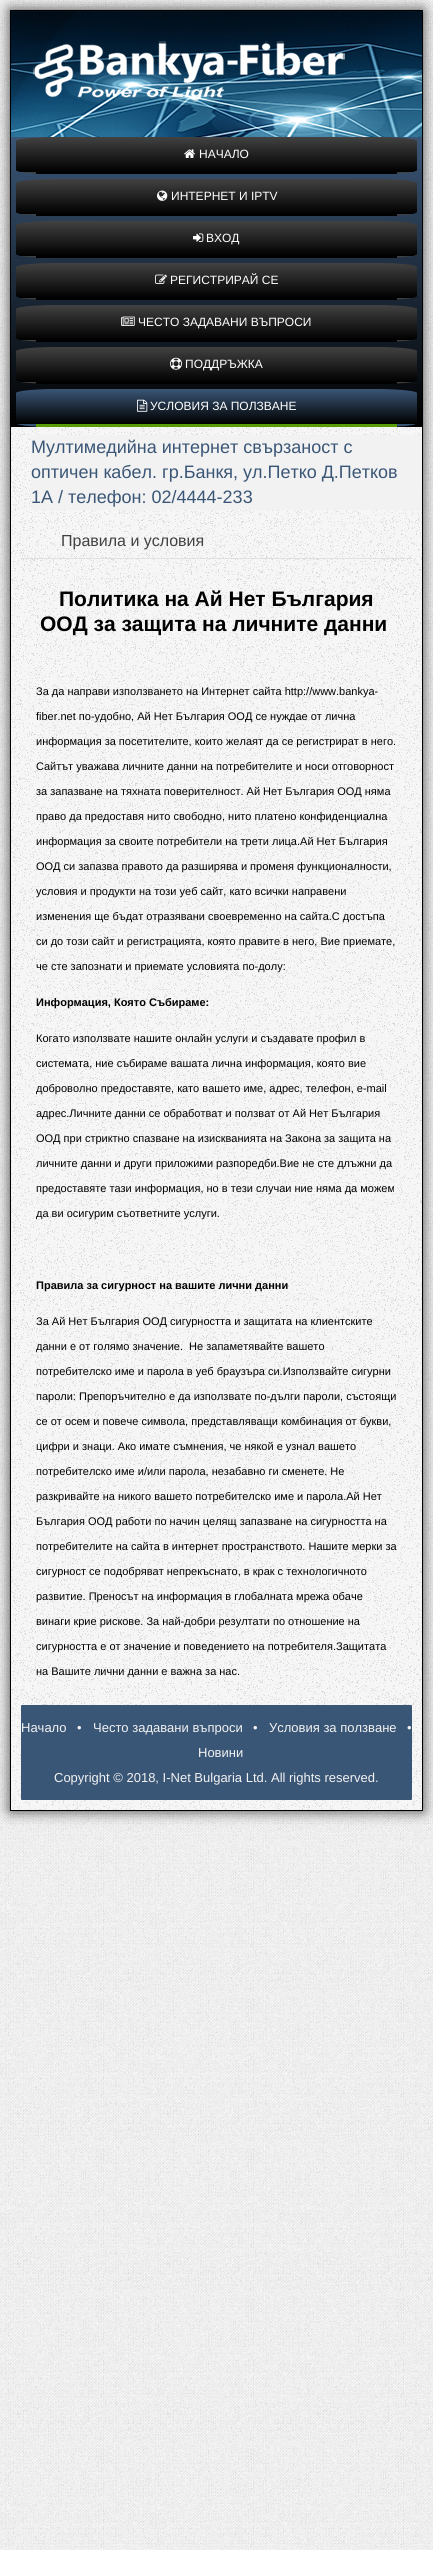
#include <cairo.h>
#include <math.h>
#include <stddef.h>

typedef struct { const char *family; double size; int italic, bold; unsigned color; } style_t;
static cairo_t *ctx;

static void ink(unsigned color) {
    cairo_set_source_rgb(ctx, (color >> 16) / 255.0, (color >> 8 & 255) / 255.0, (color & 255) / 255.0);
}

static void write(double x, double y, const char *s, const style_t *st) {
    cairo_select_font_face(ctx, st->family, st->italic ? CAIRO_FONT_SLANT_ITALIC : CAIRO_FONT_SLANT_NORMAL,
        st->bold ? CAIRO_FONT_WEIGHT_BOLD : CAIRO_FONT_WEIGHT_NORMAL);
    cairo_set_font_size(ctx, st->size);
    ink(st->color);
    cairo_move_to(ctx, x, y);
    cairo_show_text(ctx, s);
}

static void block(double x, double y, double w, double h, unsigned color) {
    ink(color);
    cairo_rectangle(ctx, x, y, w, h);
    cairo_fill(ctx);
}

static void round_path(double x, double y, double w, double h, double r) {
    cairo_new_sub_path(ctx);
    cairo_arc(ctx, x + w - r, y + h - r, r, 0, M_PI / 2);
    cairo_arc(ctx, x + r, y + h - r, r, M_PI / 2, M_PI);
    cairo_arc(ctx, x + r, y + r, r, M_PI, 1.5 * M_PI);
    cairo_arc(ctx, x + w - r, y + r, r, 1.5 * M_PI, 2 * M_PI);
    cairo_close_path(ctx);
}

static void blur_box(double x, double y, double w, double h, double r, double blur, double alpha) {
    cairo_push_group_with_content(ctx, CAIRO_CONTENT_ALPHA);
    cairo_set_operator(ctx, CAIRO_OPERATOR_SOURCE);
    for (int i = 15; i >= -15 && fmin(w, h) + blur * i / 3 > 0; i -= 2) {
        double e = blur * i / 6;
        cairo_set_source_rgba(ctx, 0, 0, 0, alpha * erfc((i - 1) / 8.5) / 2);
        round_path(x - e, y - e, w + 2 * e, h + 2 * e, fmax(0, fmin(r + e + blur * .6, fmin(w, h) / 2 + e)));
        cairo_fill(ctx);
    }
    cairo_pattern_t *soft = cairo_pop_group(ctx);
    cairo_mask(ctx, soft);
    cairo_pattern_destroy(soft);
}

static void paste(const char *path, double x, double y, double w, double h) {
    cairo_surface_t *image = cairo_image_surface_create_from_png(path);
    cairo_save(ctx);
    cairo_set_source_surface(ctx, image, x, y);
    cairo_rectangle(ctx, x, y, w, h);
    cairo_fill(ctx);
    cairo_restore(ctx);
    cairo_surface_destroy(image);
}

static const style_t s1 = {"Liberation Sans", 12, 0, 0, 0xffffff};
static const style_t s2 = {"Liberation Sans", 18, 0, 0, 0x3a5676};
static const style_t s3 = {"Liberation Sans", 16, 0, 0, 0x424242};
static const style_t s4 = {"Liberation Sans", 21, 0, 1, 0x000000};
static const style_t s5 = {"Liberation Sans", 11, 0, 0, 0x000000};
static const style_t s6 = {"Liberation Sans", 11, 0, 1, 0x000000};
static const style_t s7 = {"Liberation Sans", 13, 0, 0, 0xf2f2f2};

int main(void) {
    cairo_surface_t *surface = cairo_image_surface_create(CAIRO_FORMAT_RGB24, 433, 2550);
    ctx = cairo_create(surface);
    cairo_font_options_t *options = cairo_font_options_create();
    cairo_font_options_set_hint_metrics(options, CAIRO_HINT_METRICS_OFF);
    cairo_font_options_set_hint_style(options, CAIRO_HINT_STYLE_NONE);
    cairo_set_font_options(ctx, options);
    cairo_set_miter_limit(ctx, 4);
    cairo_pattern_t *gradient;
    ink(0xffffff);
    cairo_paint(ctx);
    paste("pic1.png", 0, 0, 433, 2550);
    ink(0x424242);
    blur_box(10, 10, 413, 1801, 0, 7, 1);
    paste("pic2.png", 11, 11, 411, 1799);
    cairo_rectangle(ctx, 10.5, 10.5, 412, 1800);
    ink(0x000000);
    cairo_set_line_width(ctx, 1);
    cairo_stroke(ctx);
    paste("pic3.png", 11, 11, 411, 126);
    paste("pic4.png", 33, 41, 312, 61);
    gradient = cairo_pattern_create_linear(216, 137, 217, 427);
    cairo_pattern_add_color_stop_rgba(gradient, 0, 0.227, 0.337, 0.463, 1);
    cairo_pattern_add_color_stop_rgba(gradient, 1, 0, 0, 0, 1);
    cairo_set_source(ctx, gradient);
    cairo_pattern_destroy(gradient);
    cairo_rectangle(ctx, 11, 137, 411, 290);
    cairo_fill(ctx);
    gradient = cairo_pattern_create_linear(217, 137, 217, 172);
    cairo_pattern_add_color_stop_rgba(gradient, 0, 0.259, 0.259, 0.259, 1);
    cairo_pattern_add_color_stop_rgba(gradient, 1, 0, 0, 0, 1);
    cairo_set_source(ctx, gradient);
    cairo_pattern_destroy(gradient);
    cairo_new_path(ctx);
    cairo_move_to(ctx, 56, 137);
    cairo_curve_to(ctx, 34, 137, 16, 139, 16, 141);
    cairo_line_to(ctx, 16, 170);
    cairo_curve_to(ctx, 16, 171, 18, 171, 20, 172);
    cairo_line_to(ctx, 413, 172);
    cairo_curve_to(ctx, 415, 171, 417, 171, 417, 170);
    cairo_line_to(ctx, 417, 141);
    cairo_curve_to(ctx, 417, 139, 399, 137, 377, 137);
    cairo_close_path(ctx);
    cairo_fill(ctx);
    gradient = cairo_pattern_create_linear(217, 172, 217, 207);
    cairo_pattern_add_color_stop_rgba(gradient, 0, 0.259, 0.259, 0.259, 1);
    cairo_pattern_add_color_stop_rgba(gradient, 1, 0, 0, 0, 1);
    cairo_set_source(ctx, gradient);
    cairo_pattern_destroy(gradient);
    cairo_new_path(ctx);
    cairo_move_to(ctx, 413, 172);
    cairo_curve_to(ctx, 406, 173, 392, 174, 377, 174);
    cairo_line_to(ctx, 56, 174);
    cairo_curve_to(ctx, 41, 174, 27, 173, 20, 172);
    cairo_close_path(ctx);
    cairo_fill(ctx);
    block(36, 172, 361, 2, 0x000000);
    paste("pic5.png", 184, 149, 11, 9);
    write(199, 158, "НАЧАЛО", &s1);
    gradient = cairo_pattern_create_linear(217, 179, 217, 214);
    cairo_pattern_add_color_stop_rgba(gradient, 0, 0.259, 0.259, 0.259, 1);
    cairo_pattern_add_color_stop_rgba(gradient, 1, 0, 0, 0, 1);
    cairo_set_source(ctx, gradient);
    cairo_pattern_destroy(gradient);
    cairo_new_path(ctx);
    cairo_move_to(ctx, 56, 179);
    cairo_curve_to(ctx, 34, 179, 16, 181, 16, 183);
    cairo_line_to(ctx, 16, 212);
    cairo_curve_to(ctx, 16, 213, 18, 213, 20, 214);
    cairo_line_to(ctx, 413, 214);
    cairo_curve_to(ctx, 415, 213, 417, 213, 417, 212);
    cairo_line_to(ctx, 417, 183);
    cairo_curve_to(ctx, 417, 181, 399, 179, 377, 179);
    cairo_close_path(ctx);
    cairo_fill(ctx);
    gradient = cairo_pattern_create_linear(217, 214, 217, 249);
    cairo_pattern_add_color_stop_rgba(gradient, 0, 0.259, 0.259, 0.259, 1);
    cairo_pattern_add_color_stop_rgba(gradient, 1, 0, 0, 0, 1);
    cairo_set_source(ctx, gradient);
    cairo_pattern_destroy(gradient);
    cairo_new_path(ctx);
    cairo_move_to(ctx, 413, 214);
    cairo_curve_to(ctx, 406, 215, 392, 216, 377, 216);
    cairo_line_to(ctx, 56, 216);
    cairo_curve_to(ctx, 41, 216, 27, 215, 20, 214);
    cairo_close_path(ctx);
    cairo_fill(ctx);
    block(36, 214, 361, 2, 0x000000);
    paste("pic6.png", 157, 190, 11, 11);
    write(171, 200, "ИНТЕРНЕТ И IPTV", &s1);
    gradient = cairo_pattern_create_linear(217, 221, 217, 256);
    cairo_pattern_add_color_stop_rgba(gradient, 0, 0.259, 0.259, 0.259, 1);
    cairo_pattern_add_color_stop_rgba(gradient, 1, 0, 0, 0, 1);
    cairo_set_source(ctx, gradient);
    cairo_pattern_destroy(gradient);
    cairo_new_path(ctx);
    cairo_move_to(ctx, 56, 221);
    cairo_curve_to(ctx, 34, 221, 16, 223, 16, 225);
    cairo_line_to(ctx, 16, 254);
    cairo_curve_to(ctx, 16, 255, 18, 255, 20, 256);
    cairo_line_to(ctx, 413, 256);
    cairo_curve_to(ctx, 415, 255, 417, 255, 417, 254);
    cairo_line_to(ctx, 417, 225);
    cairo_curve_to(ctx, 417, 223, 399, 221, 377, 221);
    cairo_close_path(ctx);
    cairo_fill(ctx);
    gradient = cairo_pattern_create_linear(217, 256, 217, 291);
    cairo_pattern_add_color_stop_rgba(gradient, 0, 0.259, 0.259, 0.259, 1);
    cairo_pattern_add_color_stop_rgba(gradient, 1, 0, 0, 0, 1);
    cairo_set_source(ctx, gradient);
    cairo_pattern_destroy(gradient);
    cairo_new_path(ctx);
    cairo_move_to(ctx, 413, 256);
    cairo_curve_to(ctx, 406, 257, 392, 258, 377, 258);
    cairo_line_to(ctx, 56, 258);
    cairo_curve_to(ctx, 41, 258, 27, 257, 20, 256);
    cairo_close_path(ctx);
    cairo_fill(ctx);
    block(36, 256, 361, 2, 0x000000);
    paste("pic7.png", 193, 233, 11, 9);
    write(206, 242, "ВХОД", &s1);
    gradient = cairo_pattern_create_linear(217, 263, 217, 298);
    cairo_pattern_add_color_stop_rgba(gradient, 0, 0.259, 0.259, 0.259, 1);
    cairo_pattern_add_color_stop_rgba(gradient, 1, 0, 0, 0, 1);
    cairo_set_source(ctx, gradient);
    cairo_pattern_destroy(gradient);
    cairo_new_path(ctx);
    cairo_move_to(ctx, 56, 263);
    cairo_curve_to(ctx, 34, 263, 16, 265, 16, 267);
    cairo_line_to(ctx, 16, 296);
    cairo_curve_to(ctx, 16, 297, 18, 297, 20, 298);
    cairo_line_to(ctx, 413, 298);
    cairo_curve_to(ctx, 415, 297, 417, 297, 417, 296);
    cairo_line_to(ctx, 417, 267);
    cairo_curve_to(ctx, 417, 265, 399, 263, 377, 263);
    cairo_close_path(ctx);
    cairo_fill(ctx);
    gradient = cairo_pattern_create_linear(217, 298, 217, 333);
    cairo_pattern_add_color_stop_rgba(gradient, 0, 0.259, 0.259, 0.259, 1);
    cairo_pattern_add_color_stop_rgba(gradient, 1, 0, 0, 0, 1);
    cairo_set_source(ctx, gradient);
    cairo_pattern_destroy(gradient);
    cairo_new_path(ctx);
    cairo_move_to(ctx, 413, 298);
    cairo_curve_to(ctx, 406, 299, 392, 300, 377, 300);
    cairo_line_to(ctx, 56, 300);
    cairo_curve_to(ctx, 41, 300, 27, 299, 20, 298);
    cairo_close_path(ctx);
    cairo_fill(ctx);
    block(36, 298, 361, 2, 0x000000);
    paste("pic8.png", 155, 274, 12, 10);
    write(170, 284, "РЕГИСТРИРАЙ СЕ", &s1);
    gradient = cairo_pattern_create_linear(217, 305, 217, 340);
    cairo_pattern_add_color_stop_rgba(gradient, 0, 0.259, 0.259, 0.259, 1);
    cairo_pattern_add_color_stop_rgba(gradient, 1, 0, 0, 0, 1);
    cairo_set_source(ctx, gradient);
    cairo_pattern_destroy(gradient);
    cairo_new_path(ctx);
    cairo_move_to(ctx, 56, 305);
    cairo_curve_to(ctx, 34, 305, 16, 307, 16, 309);
    cairo_line_to(ctx, 16, 338);
    cairo_curve_to(ctx, 16, 339, 18, 339, 20, 340);
    cairo_line_to(ctx, 413, 340);
    cairo_curve_to(ctx, 415, 339, 417, 339, 417, 338);
    cairo_line_to(ctx, 417, 309);
    cairo_curve_to(ctx, 417, 307, 399, 305, 377, 305);
    cairo_close_path(ctx);
    cairo_fill(ctx);
    gradient = cairo_pattern_create_linear(217, 340, 217, 375);
    cairo_pattern_add_color_stop_rgba(gradient, 0, 0.259, 0.259, 0.259, 1);
    cairo_pattern_add_color_stop_rgba(gradient, 1, 0, 0, 0, 1);
    cairo_set_source(ctx, gradient);
    cairo_pattern_destroy(gradient);
    cairo_new_path(ctx);
    cairo_move_to(ctx, 413, 340);
    cairo_curve_to(ctx, 406, 341, 392, 342, 377, 342);
    cairo_line_to(ctx, 56, 342);
    cairo_curve_to(ctx, 41, 342, 27, 341, 20, 340);
    cairo_close_path(ctx);
    cairo_fill(ctx);
    block(36, 340, 361, 2, 0x000000);
    paste("pic9.png", 121, 316, 14, 10);
    write(138, 326, "ЧЕСТО ЗАДАВАНИ ВЪПРОСИ", &s1);
    gradient = cairo_pattern_create_linear(217, 347, 217, 382);
    cairo_pattern_add_color_stop_rgba(gradient, 0, 0.259, 0.259, 0.259, 1);
    cairo_pattern_add_color_stop_rgba(gradient, 1, 0, 0, 0, 1);
    cairo_set_source(ctx, gradient);
    cairo_pattern_destroy(gradient);
    cairo_new_path(ctx);
    cairo_move_to(ctx, 56, 347);
    cairo_curve_to(ctx, 34, 347, 16, 349, 16, 351);
    cairo_line_to(ctx, 16, 380);
    cairo_curve_to(ctx, 16, 381, 18, 381, 20, 382);
    cairo_line_to(ctx, 413, 382);
    cairo_curve_to(ctx, 415, 381, 417, 381, 417, 380);
    cairo_line_to(ctx, 417, 351);
    cairo_curve_to(ctx, 417, 349, 399, 347, 377, 347);
    cairo_close_path(ctx);
    cairo_fill(ctx);
    gradient = cairo_pattern_create_linear(217, 382, 217, 417);
    cairo_pattern_add_color_stop_rgba(gradient, 0, 0.259, 0.259, 0.259, 1);
    cairo_pattern_add_color_stop_rgba(gradient, 1, 0, 0, 0, 1);
    cairo_set_source(ctx, gradient);
    cairo_pattern_destroy(gradient);
    cairo_new_path(ctx);
    cairo_move_to(ctx, 413, 382);
    cairo_curve_to(ctx, 406, 383, 392, 384, 377, 384);
    cairo_line_to(ctx, 56, 384);
    cairo_curve_to(ctx, 41, 384, 27, 383, 20, 382);
    cairo_close_path(ctx);
    cairo_fill(ctx);
    block(36, 382, 361, 2, 0x000000);
    paste("pic10.png", 170, 357, 12, 13);
    write(185, 368, "ПОДДРЪЖКА", &s1);
    gradient = cairo_pattern_create_linear(217, 389, 217, 424);
    cairo_pattern_add_color_stop_rgba(gradient, 0, 0.227, 0.337, 0.463, 1);
    cairo_pattern_add_color_stop_rgba(gradient, 1, 0, 0, 0, 1);
    cairo_set_source(ctx, gradient);
    cairo_pattern_destroy(gradient);
    cairo_new_path(ctx);
    cairo_move_to(ctx, 56, 389);
    cairo_curve_to(ctx, 34, 389, 16, 391, 16, 393);
    cairo_line_to(ctx, 16, 423);
    cairo_line_to(ctx, 17, 424);
    cairo_line_to(ctx, 416, 424);
    cairo_line_to(ctx, 417, 423);
    cairo_line_to(ctx, 417, 393);
    cairo_curve_to(ctx, 417, 391, 399, 389, 377, 389);
    cairo_close_path(ctx);
    cairo_fill(ctx);
    gradient = cairo_pattern_create_linear(217, 424, 217, 459);
    cairo_pattern_add_color_stop_rgba(gradient, 0, 0.227, 0.337, 0.463, 1);
    cairo_pattern_add_color_stop_rgba(gradient, 1, 0, 0, 0, 1);
    cairo_set_source(ctx, gradient);
    cairo_pattern_destroy(gradient);
    cairo_new_path(ctx);
    cairo_move_to(ctx, 416, 424);
    cairo_curve_to(ctx, 412, 426, 396, 427, 377, 427);
    cairo_line_to(ctx, 56, 427);
    cairo_curve_to(ctx, 37, 427, 21, 426, 17, 424);
    cairo_close_path(ctx);
    cairo_fill(ctx);
    block(36, 424, 361, 3, 0x599c00);
    paste("pic11.png", 137, 399, 11, 13);
    write(150, 410, "УСЛОВИЯ ЗА ПОЛЗВАНЕ", &s1);
    block(31, 435, 391, 75, 0xf2f2f2);
    write(31, 453, "Мултимедийна интернет свързаност с", &s2);
    write(31, 478, "оптичен кабел. гр.Банкя, ул.Петко Д.Петков", &s2);
    write(31, 503, "1А / телефон: 02/4444-233", &s2);
    block(21, 558, 391, 1, 0xe0e0e0);
    write(61, 546, "Правила и условия", &s3);
    write(59, 606, "Политика на Ай Нет България", &s4);
    write(40, 631, "ООД за защита на личните данни", &s4);
    write(36, 695, "За да направи използването на Интернет сайта http://www.bankya-", &s5);
    write(36, 720, "fiber.net по-удобно, Ай Нет България ООД се нуждае от лична", &s5);
    write(36, 745, "информация за посетителите, които желаят да се регистрират в него.", &s5);
    write(36, 770, "Сайтът уважава личните данни на потребителите и носи отговорност", &s5);
    write(36, 795, "за запазване на тяхната поверителност. Ай Нет България ООД няма", &s5);
    write(36, 820, "право да предоставя нито свободно, нито платено конфиденциална", &s5);
    write(36, 845, "информация за своите потребители на трети лица.Ай Нет България", &s5);
    write(36, 870, "ООД си запазва правото да разширява и променя функционалности,", &s5);
    write(36, 895, "условия и продукти на този уеб сайт, като всички направени", &s5);
    write(36, 920, "изменения ще бъдат отразявани своевременно на сайта.С достъпа", &s5);
    write(36, 945, "си до този сайт и регистрацията, която правите в него, Вие приемате,", &s5);
    write(36, 970, "че сте запознати и приемате условията по-долу:", &s5);
    write(36, 1006, "Информация, Която Събираме:", &s6);
    write(36, 1042, "Когато използвате нашите онлайн услуги и създавате профил в", &s5);
    write(36, 1067, "системата, ние събираме вашата лична информация, която вие", &s5);
    write(36, 1092, "доброволно предоставяте, като вашето име, адрес, телефон, e-mail", &s5);
    write(36, 1117, "адрес.Личните данни се обработват и ползват от Ай Нет България", &s5);
    write(36, 1142, "ООД при стриктно спазване на изискванията на Закона за защита на", &s5);
    write(36, 1167, "личните данни и други приложими разпоредби.Вие не сте длъжни да", &s5);
    write(36, 1192, "предоставяте тази информация, но в тези случаи ние няма да можем", &s5);
    write(36, 1217, "да ви осигурим съответните услуги.", &s5);
    write(36, 1289, "Правила за сигурност на вашите лични данни", &s6);
    write(36, 1325, "За Ай Нет България ООД сигурността и защитата на клиентските", &s5);
    write(36, 1350, "данни е от голямо значение.  Не запаметявайте вашето", &s5);
    write(36, 1375, "потребителско име и парола в уеб браузъра си.Използвайте сигурни", &s5);
    write(36, 1400, "пароли: Препоръчително е да използвате по-дълги пароли, състоящи", &s5);
    write(36, 1425, "се от осем и повече символа, представляващи комбинация от букви,", &s5);
    write(36, 1450, "цифри и знаци. Ако имате съмнения, че някой е узнал вашето", &s5);
    write(36, 1475, "потребителско име и/или парола, незабавно ги сменете. Не", &s5);
    write(36, 1500, "разкривайте на никого вашето потребителско име и парола.Ай Нет", &s5);
    write(36, 1525, "България ООД работи по начин целящ запазване на сигурността на", &s5);
    write(36, 1550, "потребителите на сайта в интернет пространството. Нашите мерки за", &s5);
    write(36, 1575, "сигурност се подобряват непрекъснато, в крак с технологичното", &s5);
    write(36, 1600, "развитие. Преносът на информация в глобалната мрежа обаче", &s5);
    write(36, 1625, "винаги крие рискове. За най-добри резултати по отношение на", &s5);
    write(36, 1650, "сигурността е от значение и поведението на потребителя.Защитата", &s5);
    write(36, 1675, "на Вашите лични данни е важна за нас.", &s5);
    ink(0x3a5676);
    round_path(21, 1705, 391, 95, 1);
    cairo_fill(ctx);
    write(21, 1732, "Начало", &s7);
    write(77, 1732, "•", &s7);
    write(93, 1732, "Често задавани въпроси", &s7);
    write(253, 1732, "•", &s7);
    write(269, 1732, "Условия за ползване", &s7);
    write(407, 1732, "•", &s7);
    write(198, 1757, "Новини", &s7);
    write(54, 1782, "Copyright © 2018, I-Net Bulgaria Ltd. All rights reserved.", &s7);
    cairo_surface_write_to_png(surface, "screenshot.png");
    cairo_font_options_destroy(options);
    cairo_destroy(ctx);
    cairo_surface_destroy(surface);
    return 0;
}
